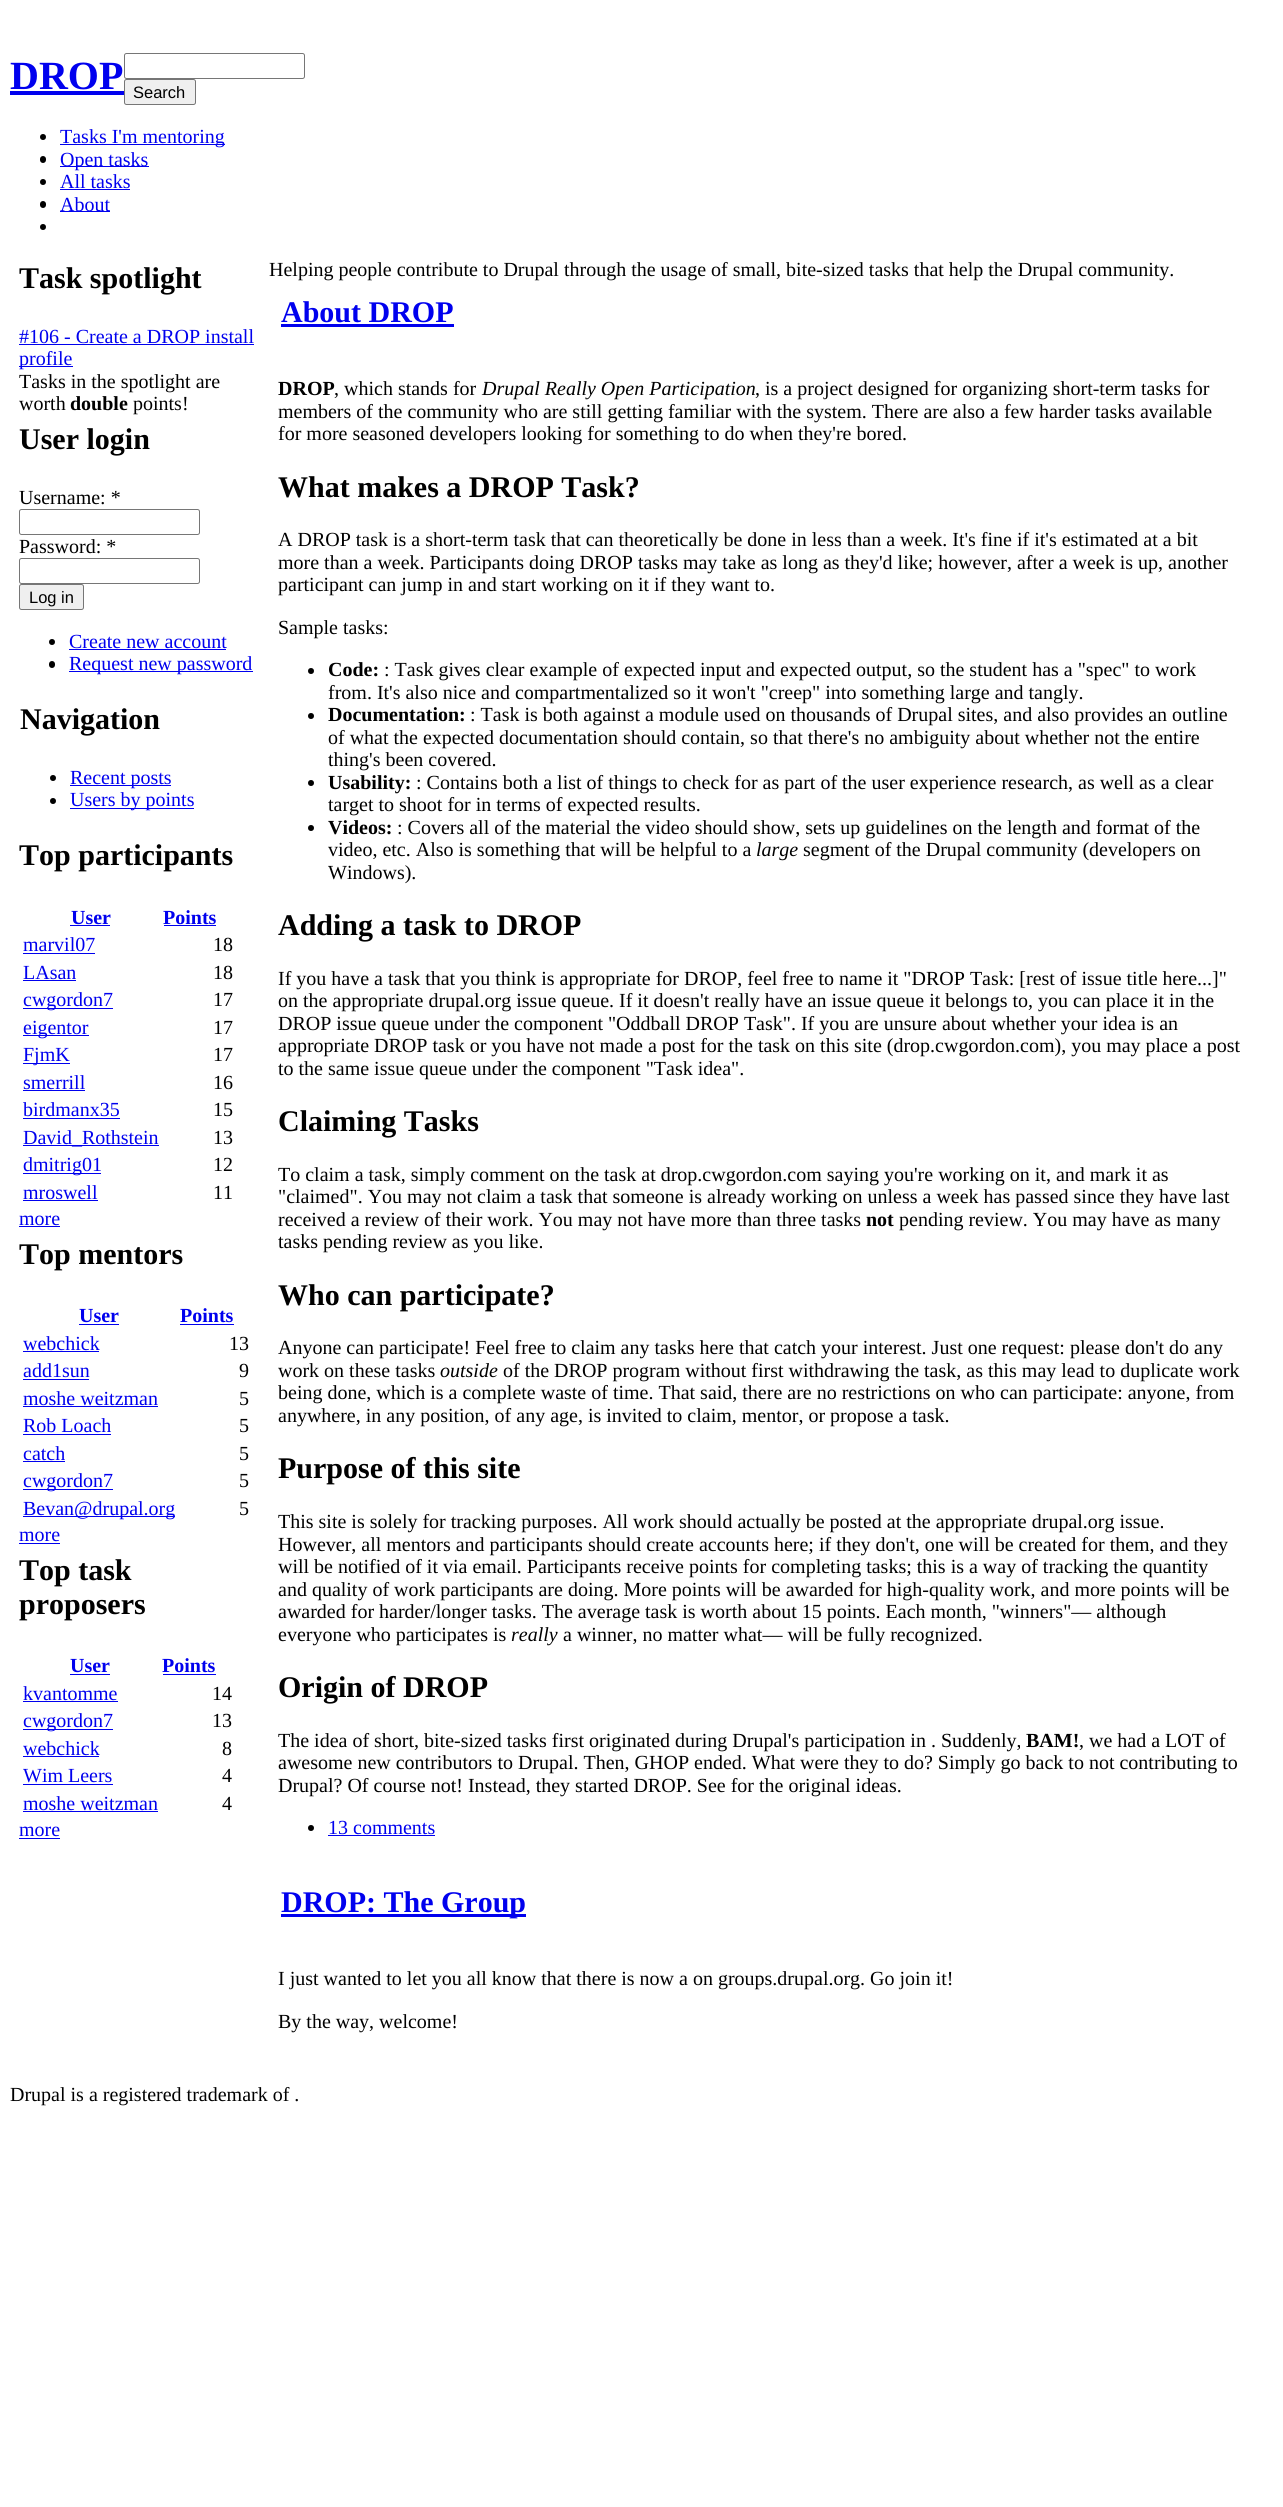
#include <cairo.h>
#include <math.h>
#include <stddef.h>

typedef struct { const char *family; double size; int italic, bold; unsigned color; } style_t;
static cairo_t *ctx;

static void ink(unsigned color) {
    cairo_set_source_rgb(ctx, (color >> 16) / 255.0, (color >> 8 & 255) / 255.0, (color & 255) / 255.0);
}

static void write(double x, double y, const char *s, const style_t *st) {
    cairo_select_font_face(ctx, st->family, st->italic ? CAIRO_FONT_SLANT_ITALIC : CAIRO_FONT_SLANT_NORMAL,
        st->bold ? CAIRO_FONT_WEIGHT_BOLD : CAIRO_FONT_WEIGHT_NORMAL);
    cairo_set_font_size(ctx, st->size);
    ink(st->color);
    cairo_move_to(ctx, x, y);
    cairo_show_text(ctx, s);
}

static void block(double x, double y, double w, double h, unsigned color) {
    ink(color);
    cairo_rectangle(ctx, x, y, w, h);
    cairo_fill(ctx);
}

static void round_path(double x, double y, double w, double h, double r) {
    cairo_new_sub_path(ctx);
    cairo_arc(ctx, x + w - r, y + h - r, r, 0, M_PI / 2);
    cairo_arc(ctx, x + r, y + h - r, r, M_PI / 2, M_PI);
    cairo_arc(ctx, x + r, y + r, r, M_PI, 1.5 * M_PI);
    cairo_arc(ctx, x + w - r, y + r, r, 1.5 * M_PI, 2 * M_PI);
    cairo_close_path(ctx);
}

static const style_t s1 = {"Liberation Serif", 40, 0, 1, 0x0000ee};
static const style_t s2 = {"Liberation Sans", 16.5, 0, 0, 0x000000};
static const style_t s3 = {"Liberation Serif", 20, 0, 0, 0x0000ee};
static const style_t s4 = {"Liberation Serif", 30, 0, 1, 0x000000};
static const style_t s5 = {"Liberation Serif", 20, 0, 0, 0x000000};
static const style_t s6 = {"Liberation Serif", 20, 0, 1, 0x000000};
static const style_t s7 = {"Liberation Serif", 20, 0, 1, 0x0000ee};
static const style_t s8 = {"Liberation Serif", 30, 0, 1, 0x0000ee};
static const style_t s9 = {"Liberation Serif", 20, 1, 0, 0x000000};

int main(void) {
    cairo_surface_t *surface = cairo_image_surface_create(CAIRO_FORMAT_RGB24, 1283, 2507);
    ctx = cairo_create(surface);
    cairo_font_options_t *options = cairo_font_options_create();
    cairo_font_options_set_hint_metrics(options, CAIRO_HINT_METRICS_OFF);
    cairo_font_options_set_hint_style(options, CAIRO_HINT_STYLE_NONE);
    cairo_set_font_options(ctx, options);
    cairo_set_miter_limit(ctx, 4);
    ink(0xffffff);
    cairo_paint(ctx);
    write(10, 89, "DROP", &s1);
    block(10, 91, 114, 4, 0x0000ee);
    round_path(124.5, 53.5, 180, 25, 2);
    ink(0x767676);
    cairo_set_line_width(ctx, 1);
    cairo_stroke(ctx);
    ink(0xefefef);
    round_path(124.5, 79.5, 71, 25, 2);
    cairo_fill_preserve(ctx);
    ink(0x767676);
    cairo_stroke(ctx);
    write(133, 98, "Search", &s2);
    cairo_new_path(ctx);
    cairo_arc(ctx, 43, 137, 3, 0, 2 * M_PI);
    cairo_fill(ctx);
    block(60, 144, 165, 1, 0x0000ee);
    write(60, 143, "Tasks I'm mentoring", &s3);
    ink(0x000000);
    round_path(40, 156, 6, 7, 3);
    cairo_fill(ctx);
    block(60, 166, 89, 1, 0x0000ee);
    write(60, 166, "Open tasks", &s3);
    ink(0x000000);
    cairo_new_path(ctx);
    cairo_arc(ctx, 43, 182, 3, 0, 2 * M_PI);
    cairo_fill(ctx);
    write(60, 188, "All tasks", &s3);
    block(60, 189, 70, 1, 0x0000ee);
    ink(0x000000);
    round_path(40, 201, 6, 7, 3);
    cairo_fill(ctx);
    block(60, 211, 50, 1, 0x0000ee);
    write(60, 211, "About", &s3);
    ink(0x000000);
    cairo_new_path(ctx);
    cairo_arc(ctx, 43, 227, 3, 0, 2 * M_PI);
    cairo_fill(ctx);
    write(19, 288, "Task spotlight", &s4);
    write(19, 343, "#106 - Create a DROP install", &s3);
    block(19, 344, 235, 1, 0x0000ee);
    block(19, 366, 54, 1, 0x0000ee);
    write(19, 365, "profile", &s3);
    write(19, 388, "Tasks in the spotlight are", &s5);
    write(19, 410, "worth", &s5);
    write(70, 410, "double", &s6);
    write(133, 410, "points!", &s5);
    write(19, 449, "User login", &s4);
    write(19, 504, "Username: *", &s5);
    round_path(19.5, 509.5, 180, 25, 2);
    ink(0x767676);
    cairo_stroke(ctx);
    write(19, 553, "Password: *", &s5);
    round_path(19.5, 558.5, 180, 25, 2);
    ink(0x767676);
    cairo_stroke(ctx);
    ink(0xefefef);
    round_path(19.5, 584.5, 64, 25, 2);
    cairo_fill_preserve(ctx);
    ink(0x767676);
    cairo_stroke(ctx);
    write(29, 603, "Log in", &s2);
    cairo_new_path(ctx);
    cairo_arc(ctx, 52, 642, 3, 0, 2 * M_PI);
    cairo_fill(ctx);
    write(69, 648, "Create new account", &s3);
    block(69, 649, 157, 1, 0x0000ee);
    ink(0x000000);
    round_path(49, 661, 6, 7, 3);
    cairo_fill(ctx);
    block(69, 671, 184, 1, 0x0000ee);
    write(69, 670, "Request new password", &s3);
    write(20, 729, "Navigation", &s4);
    cairo_new_path(ctx);
    cairo_arc(ctx, 53, 778, 3, 0, 2 * M_PI);
    cairo_fill(ctx);
    block(70, 785, 101, 1, 0x0000ee);
    write(70, 784, "Recent posts", &s3);
    ink(0x000000);
    cairo_new_path(ctx);
    cairo_arc(ctx, 53, 801, 3, 0, 2 * M_PI);
    cairo_fill(ctx);
    block(70, 808, 124, 1, 0x0000ee);
    write(70, 806, "Users by points", &s3);
    write(19, 865, "Top participants", &s4);
    write(71, 924, "User", &s7);
    block(70, 925, 40, 1, 0x0000ee);
    write(163, 924, "Points", &s7);
    block(164, 925, 52, 1, 0x0000ee);
    write(23, 951, "marvil07", &s3);
    block(23, 953, 72, 1, 0x0000ee);
    write(213, 951, "18", &s5);
    write(23, 979, "LAsan", &s3);
    block(23, 980, 53, 1, 0x0000ee);
    write(213, 979, "18", &s5);
    block(23, 1008, 90, 1, 0x0000ee);
    write(23, 1006, "cwgordon7", &s3);
    write(213, 1006, "17", &s5);
    block(23, 1035, 66, 1, 0x0000ee);
    write(23, 1034, "eigentor", &s3);
    write(213, 1034, "17", &s5);
    block(23, 1063, 47, 1, 0x0000ee);
    write(23, 1061, "FjmK", &s3);
    write(213, 1061, "17", &s5);
    write(23, 1089, "smerrill", &s3);
    block(23, 1090, 62, 1, 0x0000ee);
    write(213, 1089, "16", &s5);
    write(23, 1116, "birdmanx35", &s3);
    block(23, 1118, 97, 1, 0x0000ee);
    write(213, 1116, "15", &s5);
    block(23, 1145, 136, 1, 0x0000ee);
    write(23, 1144, "David_Rothstein", &s3);
    write(213, 1144, "13", &s5);
    block(23, 1173, 78, 1, 0x0000ee);
    write(23, 1171, "dmitrig01", &s3);
    write(213, 1171, "12", &s5);
    write(23, 1199, "mroswell", &s3);
    block(23, 1200, 75, 1, 0x0000ee);
    write(213, 1199, "11", &s5);
    write(19, 1225, "more", &s3);
    block(19, 1226, 41, 1, 0x0000ee);
    write(19, 1264, "Top mentors", &s4);
    write(79, 1322, "User", &s7);
    block(79, 1324, 40, 1, 0x0000ee);
    write(180, 1322, "Points", &s7);
    block(180, 1324, 54, 1, 0x0000ee);
    write(23, 1350, "webchick", &s3);
    block(23, 1351, 76, 1, 0x0000ee);
    write(229, 1350, "13", &s5);
    write(23, 1377, "add1sun", &s3);
    block(23, 1379, 66, 1, 0x0000ee);
    write(239, 1377, "9", &s5);
    write(23, 1405, "moshe weitzman", &s3);
    block(23, 1406, 135, 1, 0x0000ee);
    write(239, 1405, "5", &s5);
    write(23, 1432, "Rob Loach", &s3);
    block(23, 1434, 88, 1, 0x0000ee);
    write(239, 1432, "5", &s5);
    write(23, 1460, "catch", &s3);
    block(23, 1461, 42, 1, 0x0000ee);
    write(239, 1460, "5", &s5);
    block(23, 1489, 90, 1, 0x0000ee);
    write(23, 1487, "cwgordon7", &s3);
    write(239, 1487, "5", &s5);
    block(23, 1516, 152, 1, 0x0000ee);
    write(23, 1515, "Bevan@drupal.org", &s3);
    write(239, 1515, "5", &s5);
    write(19, 1541, "more", &s3);
    block(19, 1543, 41, 1, 0x0000ee);
    write(19, 1580, "Top task", &s4);
    write(19, 1614, "proposers", &s4);
    write(70, 1672, "User", &s7);
    block(70, 1674, 40, 1, 0x0000ee);
    write(162, 1672, "Points", &s7);
    block(163, 1674, 53, 1, 0x0000ee);
    write(23, 1700, "kvantomme", &s3);
    block(23, 1701, 95, 1, 0x0000ee);
    write(212, 1700, "14", &s5);
    block(23, 1729, 90, 1, 0x0000ee);
    write(23, 1727, "cwgordon7", &s3);
    write(212, 1727, "13", &s5);
    write(23, 1755, "webchick", &s3);
    block(23, 1756, 76, 1, 0x0000ee);
    write(222, 1755, "8", &s5);
    write(23, 1782, "Wim Leers", &s3);
    block(23, 1784, 90, 1, 0x0000ee);
    write(222, 1782, "4", &s5);
    write(23, 1810, "moshe weitzman", &s3);
    block(23, 1811, 135, 1, 0x0000ee);
    write(222, 1810, "4", &s5);
    write(19, 1836, "more", &s3);
    block(19, 1838, 41, 1, 0x0000ee);
    write(269, 276, "Helping people contribute to Drupal through the usage of small, bite-sized tasks that help the Drupal community.", &s5);
    write(281, 322, "About DROP", &s8);
    block(281, 324, 173, 3, 0x0000ee);
    write(278, 395, "DROP", &s6);
    write(334, 395, ", which stands for", &s5);
    write(482, 395, "Drupal Really Open Participation", &s9);
    write(755, 395, ", is a project designed for organizing short-term tasks for", &s5);
    write(278, 418, "members of the community who are still getting familiar with the system. There are also a few harder tasks available", &s5);
    write(278, 440, "for more seasoned developers looking for something to do when they're bored.", &s5);
    write(278, 497, "What makes a DROP Task?", &s4);
    write(278, 546, "A DROP task is a short-term task that can theoretically be done in less than a week. It's fine if it's estimated at a bit", &s5);
    write(278, 569, "more than a week. Participants doing DROP tasks may take as long as they'd like; however, after a week is up, another", &s5);
    write(278, 591, "participant can jump in and start working on it if they want to.", &s5);
    write(278, 634, "Sample tasks:", &s5);
    cairo_new_path(ctx);
    cairo_arc(ctx, 311, 671, 3, 0, 2 * M_PI);
    cairo_fill(ctx);
    write(328, 676, "Code:", &s6);
    write(384, 676, ": Task gives clear example of expected input and expected output, so the student has a \"spec\" to work", &s5);
    write(328, 699, "from. It's also nice and compartmentalized so it won't \"creep\" into something large and tangly.", &s5);
    cairo_new_path(ctx);
    cairo_arc(ctx, 311, 716, 3, 0, 2 * M_PI);
    cairo_fill(ctx);
    write(328, 721, "Documentation:", &s6);
    write(470, 721, ": Task is both against a module used on thousands of Drupal sites, and also provides an outline", &s5);
    write(328, 744, "of what the expected documentation should contain, so that there's no ambiguity about whether not the entire", &s5);
    write(328, 766, "thing's been covered.", &s5);
    cairo_new_path(ctx);
    cairo_arc(ctx, 311, 783, 3, 0, 2 * M_PI);
    cairo_fill(ctx);
    write(328, 789, "Usability:", &s6);
    write(416, 789, ": Contains both a list of things to check for as part of the user experience research, as well as a clear", &s5);
    write(328, 811, "target to shoot for in terms of expected results.", &s5);
    cairo_new_path(ctx);
    cairo_arc(ctx, 311, 828, 3, 0, 2 * M_PI);
    cairo_fill(ctx);
    write(328, 834, "Videos:", &s6);
    write(397, 834, ": Covers all of the material the video should show, sets up guidelines on the length and format of the", &s5);
    write(328, 856, "video, etc. Also is something that will be helpful to a", &s5);
    write(756, 856, "large", &s9);
    write(803, 856, "segment of the Drupal community (developers on", &s5);
    write(328, 879, "Windows).", &s5);
    write(278, 935, "Adding a task to DROP", &s4);
    write(278, 985, "If you have a task that you think is appropriate for DROP, feel free to name it \"DROP Task: [rest of issue title here...]\"", &s5);
    write(278, 1007, "on the appropriate drupal.org issue queue. If it doesn't really have an issue queue it belongs to, you can place it in the", &s5);
    write(278, 1030, "DROP issue queue under the component \"Oddball DROP Task\". If you are unsure about whether your idea is an", &s5);
    write(278, 1052, "appropriate DROP task or you have not made a post for the task on this site (drop.cwgordon.com), you may place a post", &s5);
    write(278, 1075, "to the same issue queue under the component \"Task idea\".", &s5);
    write(278, 1131, "Claiming Tasks", &s4);
    write(278, 1181, "To claim a task, simply comment on the task at drop.cwgordon.com saying you're working on it, and mark it as", &s5);
    write(278, 1203, "\"claimed\". You may not claim a task that someone is already working on unless a week has passed since they have last", &s5);
    write(278, 1226, "received a review of their work. You may not have more than three tasks", &s5);
    write(866, 1226, "not", &s6);
    write(899, 1226, "pending review. You may have as many", &s5);
    write(278, 1248, "tasks pending review as you like.", &s5);
    write(278, 1305, "Who can participate?", &s4);
    write(278, 1354, "Anyone can participate! Feel free to claim any tasks here that catch your interest. Just one request: please don't do any", &s5);
    write(278, 1377, "work on these tasks", &s5);
    write(440, 1377, "outside", &s9);
    write(503, 1377, "of the DROP program without first withdrawing the task, as this may lead to duplicate work", &s5);
    write(278, 1399, "being done, which is a complete waste of time. That said, there are no restrictions on who can participate: anyone, from", &s5);
    write(278, 1422, "anywhere, in any position, of any age, is invited to claim, mentor, or propose a task.", &s5);
    write(278, 1478, "Purpose of this site", &s4);
    write(278, 1528, "This site is solely for tracking purposes. All work should actually be posted at the appropriate drupal.org issue.", &s5);
    write(278, 1551, "However, all mentors and participants should create accounts here; if they don't, one will be created for them, and they", &s5);
    write(278, 1573, "will be notified of it via email. Participants receive points for completing tasks; this is a way of tracking the quantity", &s5);
    write(278, 1596, "and quality of work participants are doing. More points will be awarded for high-quality work, and more points will be", &s5);
    write(278, 1618, "awarded for harder/longer tasks. The average task is worth about 15 points. Each month, \"winners\"— although", &s5);
    write(278, 1641, "everyone who participates is", &s5);
    write(511, 1641, "really", &s9);
    write(563, 1641, "a winner, no matter what— will be fully recognized.", &s5);
    write(278, 1697, "Origin of DROP", &s4);
    write(278, 1747, "The idea of short, bite-sized tasks first originated during Drupal's participation in . Suddenly,", &s5);
    write(1026, 1747, "BAM!", &s6);
    write(1079, 1747, ", we had a LOT of", &s5);
    write(278, 1769, "awesome new contributors to Drupal. Then, GHOP ended. What were they to do? Simply go back to not contributing to", &s5);
    write(278, 1792, "Drupal? Of course not! Instead, they started DROP. See for the original ideas.", &s5);
    cairo_new_path(ctx);
    cairo_arc(ctx, 311, 1828, 3, 0, 2 * M_PI);
    cairo_fill(ctx);
    write(328, 1834, "13 comments", &s3);
    block(328, 1835, 107, 1, 0x0000ee);
    block(281, 1914, 245, 3, 0x0000ee);
    write(281, 1912, "DROP: The Group", &s8);
    write(278, 1985, "I just wanted to let you all know that there is now a on groups.drupal.org. Go join it!", &s5);
    write(278, 2028, "By the way, welcome!", &s5);
    write(10, 2101, "Drupal is a registered trademark of .", &s5);
    cairo_surface_write_to_png(surface, "screenshot.png");
    cairo_font_options_destroy(options);
    cairo_destroy(ctx);
    cairo_surface_destroy(surface);
    return 0;
}
